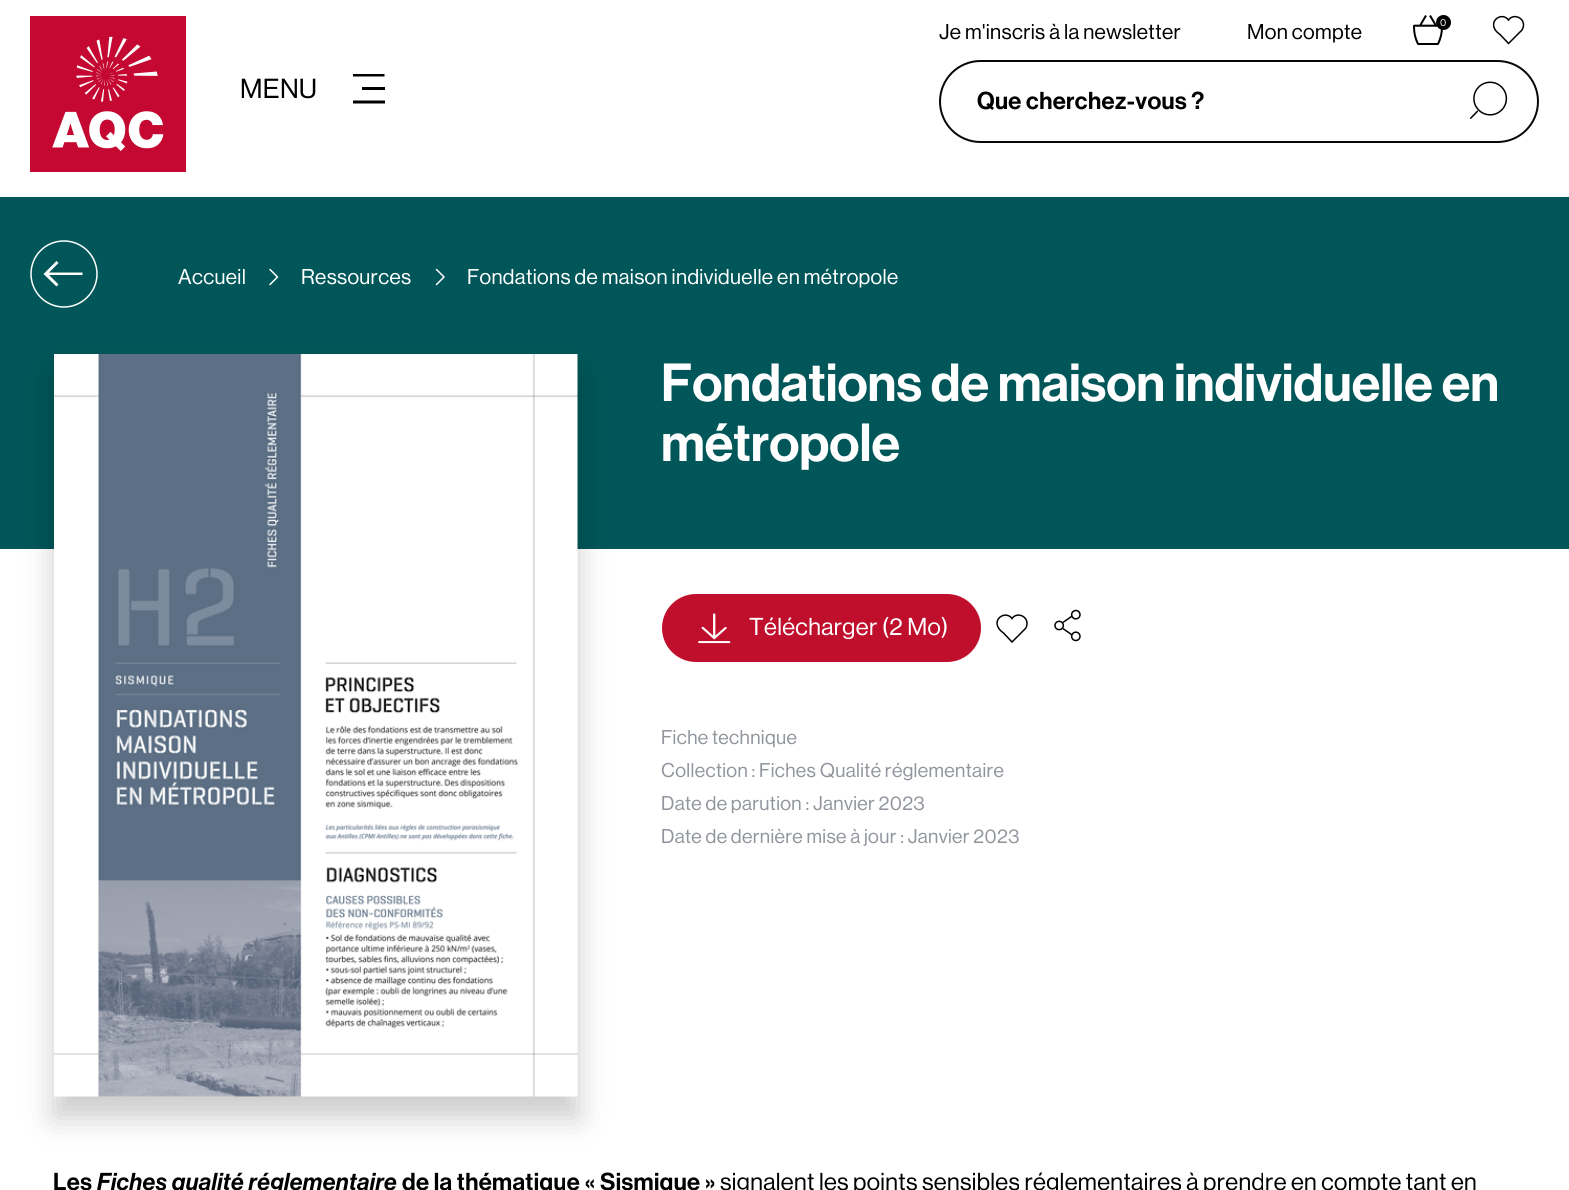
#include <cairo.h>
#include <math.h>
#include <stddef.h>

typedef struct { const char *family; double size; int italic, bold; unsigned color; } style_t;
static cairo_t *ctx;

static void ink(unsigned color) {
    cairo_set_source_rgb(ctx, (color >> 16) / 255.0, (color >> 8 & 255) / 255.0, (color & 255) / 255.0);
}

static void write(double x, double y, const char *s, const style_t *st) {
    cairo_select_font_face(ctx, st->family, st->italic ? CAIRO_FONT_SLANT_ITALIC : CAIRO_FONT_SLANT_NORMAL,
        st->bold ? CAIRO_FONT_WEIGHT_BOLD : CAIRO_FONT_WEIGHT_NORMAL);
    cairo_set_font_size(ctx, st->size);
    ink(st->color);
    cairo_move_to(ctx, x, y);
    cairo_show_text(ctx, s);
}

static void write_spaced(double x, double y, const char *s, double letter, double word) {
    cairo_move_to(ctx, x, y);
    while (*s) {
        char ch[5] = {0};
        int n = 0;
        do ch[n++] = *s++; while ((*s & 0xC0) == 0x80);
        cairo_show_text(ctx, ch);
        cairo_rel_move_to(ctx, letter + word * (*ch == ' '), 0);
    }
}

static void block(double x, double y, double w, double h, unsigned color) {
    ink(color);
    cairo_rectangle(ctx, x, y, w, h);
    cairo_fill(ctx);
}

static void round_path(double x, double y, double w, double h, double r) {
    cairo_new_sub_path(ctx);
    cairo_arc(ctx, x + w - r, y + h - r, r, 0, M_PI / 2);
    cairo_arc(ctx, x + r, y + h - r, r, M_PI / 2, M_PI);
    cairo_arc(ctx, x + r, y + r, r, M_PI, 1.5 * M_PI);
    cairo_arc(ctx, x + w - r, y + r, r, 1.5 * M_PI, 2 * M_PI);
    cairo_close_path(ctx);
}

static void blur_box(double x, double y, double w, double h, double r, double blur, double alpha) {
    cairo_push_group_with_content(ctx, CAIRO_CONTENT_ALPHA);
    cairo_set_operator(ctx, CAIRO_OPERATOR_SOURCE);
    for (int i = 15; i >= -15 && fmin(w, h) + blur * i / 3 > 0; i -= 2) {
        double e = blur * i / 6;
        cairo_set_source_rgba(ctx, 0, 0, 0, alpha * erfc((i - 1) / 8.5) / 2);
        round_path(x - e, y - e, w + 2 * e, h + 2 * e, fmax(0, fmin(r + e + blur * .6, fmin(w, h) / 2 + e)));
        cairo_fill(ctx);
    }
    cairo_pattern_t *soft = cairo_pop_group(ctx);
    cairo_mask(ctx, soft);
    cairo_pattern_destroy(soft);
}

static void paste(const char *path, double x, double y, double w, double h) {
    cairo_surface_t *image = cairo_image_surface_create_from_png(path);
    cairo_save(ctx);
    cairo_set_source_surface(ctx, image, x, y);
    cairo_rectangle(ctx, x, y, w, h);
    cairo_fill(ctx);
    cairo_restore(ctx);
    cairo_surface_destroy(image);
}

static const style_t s1 = {"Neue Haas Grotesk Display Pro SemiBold", 52.5, 0, 0, 0xffffff};

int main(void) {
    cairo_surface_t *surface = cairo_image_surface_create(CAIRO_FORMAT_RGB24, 1569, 1190);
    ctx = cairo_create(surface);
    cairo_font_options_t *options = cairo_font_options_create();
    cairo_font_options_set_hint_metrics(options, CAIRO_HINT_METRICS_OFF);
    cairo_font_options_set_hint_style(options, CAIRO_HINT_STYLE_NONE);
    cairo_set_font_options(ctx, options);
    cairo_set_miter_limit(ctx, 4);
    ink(0xffffff);
    cairo_paint(ctx);
    paste("pic1.png", 30, 16, 156, 156);
    cairo_select_font_face(ctx, "Neue Haas Grotesk Display Pro", CAIRO_FONT_SLANT_NORMAL, CAIRO_FONT_WEIGHT_NORMAL);
    cairo_set_font_size(ctx, 27);
    ink(0x000000);
    write_spaced(240, 98, "MENU", 0.35, 0);
    cairo_save(ctx);
    cairo_rectangle(ctx, 353, 74, 33, 30);
    cairo_clip(ctx);
    cairo_new_path(ctx);
    cairo_move_to(ctx, 352.5, 75);
    cairo_line_to(ctx, 384.5, 75);
    cairo_move_to(ctx, 352.5, 102);
    cairo_line_to(ctx, 385, 102);
    cairo_set_line_width(ctx, 3);
    cairo_stroke(ctx);
    cairo_restore(ctx);
    block(362, 87, 23, 3, 0x000000);
    cairo_set_font_size(ctx, 21);
    write_spaced(939, 39, "Je m'inscris à la newsletter", 0.35, 0);
    write_spaced(1247, 39, "Mon compte", 0.35, 0);
    paste("pic2.png", 1413, 15, 30, 30);
    cairo_arc(ctx, 1443.5, 22.5, 7.5, 0, 2 * M_PI);
    cairo_fill(ctx);
    cairo_set_font_size(ctx, 10);
    ink(0xffffff);
    write_spaced(1440, 26, "0", 0.35, 0);
    cairo_save(ctx);
    cairo_rectangle(ctx, 1493, 15, 33, 30);
    cairo_clip(ctx);
    cairo_new_path(ctx);
    cairo_move_to(ctx, 1523.5, 25);
    cairo_curve_to(ctx, 1523.5, 17, 1513, 13.5, 1508.5, 20);
    cairo_curve_to(ctx, 1502.5, 12, 1490, 19.5, 1494.5, 28.5);
    cairo_curve_to(ctx, 1495.5, 31, 1498, 33, 1500, 34.5);
    cairo_line_to(ctx, 1508.5, 43.5);
    cairo_line_to(ctx, 1520.5, 31.5);
    cairo_curve_to(ctx, 1522.5, 30, 1523.5, 27.5, 1523.5, 25);
    cairo_close_path(ctx);
    ink(0x000000);
    cairo_set_line_width(ctx, 1.5);
    cairo_stroke(ctx);
    cairo_restore(ctx);
    round_path(940, 61, 598, 81, 40.5);
    ink(0x070707);
    cairo_stroke(ctx);
    cairo_select_font_face(ctx, "Neue Haas Grotesk Display Pro SemiBold", CAIRO_FONT_SLANT_NORMAL, CAIRO_FONT_WEIGHT_NORMAL);
    cairo_set_font_size(ctx, 24);
    ink(0x000000);
    write_spaced(977, 109, "Que cherchez-vous ?", 0.35, 0);
    paste("pic3.png", 1469, 81, 39, 38);
    block(0, 197, 1569, 352, 0x005658);
    cairo_new_path(ctx);
    cairo_move_to(ctx, 31, 274);
    cairo_curve_to(ctx, 31, 255.5, 45.5, 241, 64, 241);
    cairo_curve_to(ctx, 82, 241, 97, 255.5, 97, 274);
    cairo_curve_to(ctx, 97, 292, 82, 307, 64, 307);
    cairo_curve_to(ctx, 45.5, 307, 31, 292, 31, 274);
    cairo_close_path(ctx);
    ink(0xffffff);
    cairo_set_line_width(ctx, 1.5);
    cairo_stroke(ctx);
    cairo_set_fill_rule(ctx, CAIRO_FILL_RULE_EVEN_ODD);
    cairo_new_path(ctx);
    cairo_move_to(ctx, 43.5, 274);
    cairo_line_to(ctx, 56.5, 261);
    cairo_line_to(ctx, 58.5, 263);
    cairo_line_to(ctx, 49, 272.5);
    cairo_line_to(ctx, 82.5, 272.5);
    cairo_line_to(ctx, 82.5, 275);
    cairo_line_to(ctx, 49, 275);
    cairo_line_to(ctx, 58.5, 284.5);
    cairo_line_to(ctx, 56.5, 286.5);
    cairo_close_path(ctx);
    cairo_fill(ctx);
    cairo_select_font_face(ctx, "Neue Haas Grotesk Display Pro", CAIRO_FONT_SLANT_NORMAL, CAIRO_FONT_WEIGHT_NORMAL);
    cairo_set_font_size(ctx, 21);
    write_spaced(178, 284, "Accueil", 0.35, 0);
    cairo_new_path(ctx);
    cairo_move_to(ctx, 270, 269.5);
    cairo_line_to(ctx, 277.5, 277);
    cairo_line_to(ctx, 270, 284.5);
    cairo_set_line_cap(ctx, CAIRO_LINE_CAP_ROUND);
    cairo_set_line_join(ctx, CAIRO_LINE_JOIN_ROUND);
    cairo_stroke(ctx);
    write_spaced(301, 284, "Ressources", 0.35, 0);
    cairo_new_path(ctx);
    cairo_move_to(ctx, 436.5, 269.5);
    cairo_line_to(ctx, 444, 277);
    cairo_line_to(ctx, 436.5, 284.5);
    cairo_stroke(ctx);
    write_spaced(467, 284, "Fondations de maison individuelle en métropole", 0.35, 0);
    ink(0x000000);
    blur_box(54, 375, 524, 743, 0, 15, 0.2);
    paste("pic4.png", 54, 354, 524, 743);
    write(661, 401, "Fondations de maison individuelle en", &s1);
    write(661, 461, "métropole", &s1);
    ink(0xc00f2d);
    round_path(663, 595, 317, 66, 33);
    cairo_fill_preserve(ctx);
    cairo_set_line_width(ctx, 2);
    cairo_set_line_cap(ctx, CAIRO_LINE_CAP_BUTT);
    cairo_set_line_join(ctx, CAIRO_LINE_JOIN_MITER);
    cairo_stroke(ctx);
    paste("pic5.png", 698, 613, 33, 31);
    cairo_select_font_face(ctx, "Neue Haas Grotesk Display Pro", CAIRO_FONT_SLANT_NORMAL, CAIRO_FONT_WEIGHT_NORMAL);
    cairo_set_font_size(ctx, 24);
    ink(0xffffff);
    write_spaced(749, 635, "Télécharger (2 Mo)", 0.35, 0);
    cairo_new_path(ctx);
    cairo_move_to(ctx, 1027, 623.5);
    cairo_curve_to(ctx, 1027, 615.5, 1016.5, 612, 1012, 618.5);
    cairo_curve_to(ctx, 1006, 610.5, 993.5, 618, 998, 627);
    cairo_curve_to(ctx, 999, 629.5, 1001.5, 631.5, 1003.5, 633);
    cairo_line_to(ctx, 1012, 642);
    cairo_line_to(ctx, 1024, 630);
    cairo_curve_to(ctx, 1026, 628.5, 1027, 626, 1027, 623.5);
    cairo_close_path(ctx);
    ink(0x000000);
    cairo_set_line_width(ctx, 1.5);
    cairo_stroke(ctx);
    paste("pic6.png", 1054, 609, 27, 33);
    cairo_set_font_size(ctx, 19.5);
    ink(0x91969d);
    write_spaced(661, 744, "Fiche technique", 0.35, 0);
    write_spaced(661, 777, "Collection : Fiches Qualité réglementaire", 0.35, 0);
    write_spaced(661, 810, "Date de parution : Janvier 2023", 0.35, 0);
    write_spaced(661, 843, "Date de dernière mise à jour : Janvier 2023", 0.35, 0);
    cairo_select_font_face(ctx, "Neue Haas Grotesk Display Pro SemiBold", CAIRO_FONT_SLANT_NORMAL, CAIRO_FONT_WEIGHT_NORMAL);
    cairo_set_font_size(ctx, 24);
    ink(0x000000);
    write_spaced(53, 1190, "Les", 0.35, 0);
    cairo_select_font_face(ctx, "Neue Haas Grotesk Display Pro Medium", CAIRO_FONT_SLANT_ITALIC, CAIRO_FONT_WEIGHT_NORMAL);
    write_spaced(97, 1190, "Fiches qualité réglementaire", 0.35, 0);
    cairo_select_font_face(ctx, "Neue Haas Grotesk Display Pro SemiBold", CAIRO_FONT_SLANT_NORMAL, CAIRO_FONT_WEIGHT_NORMAL);
    write_spaced(402, 1190, "de la thématique « Sismique »", 0.35, 0);
    cairo_select_font_face(ctx, "Neue Haas Grotesk Display Pro", CAIRO_FONT_SLANT_NORMAL, CAIRO_FONT_WEIGHT_NORMAL);
    write_spaced(720, 1190, "signalent les points sensibles réglementaires à prendre en compte tant en", 0.35, 0);
    cairo_surface_write_to_png(surface, "screenshot.png");
    cairo_font_options_destroy(options);
    cairo_destroy(ctx);
    cairo_surface_destroy(surface);
    return 0;
}
